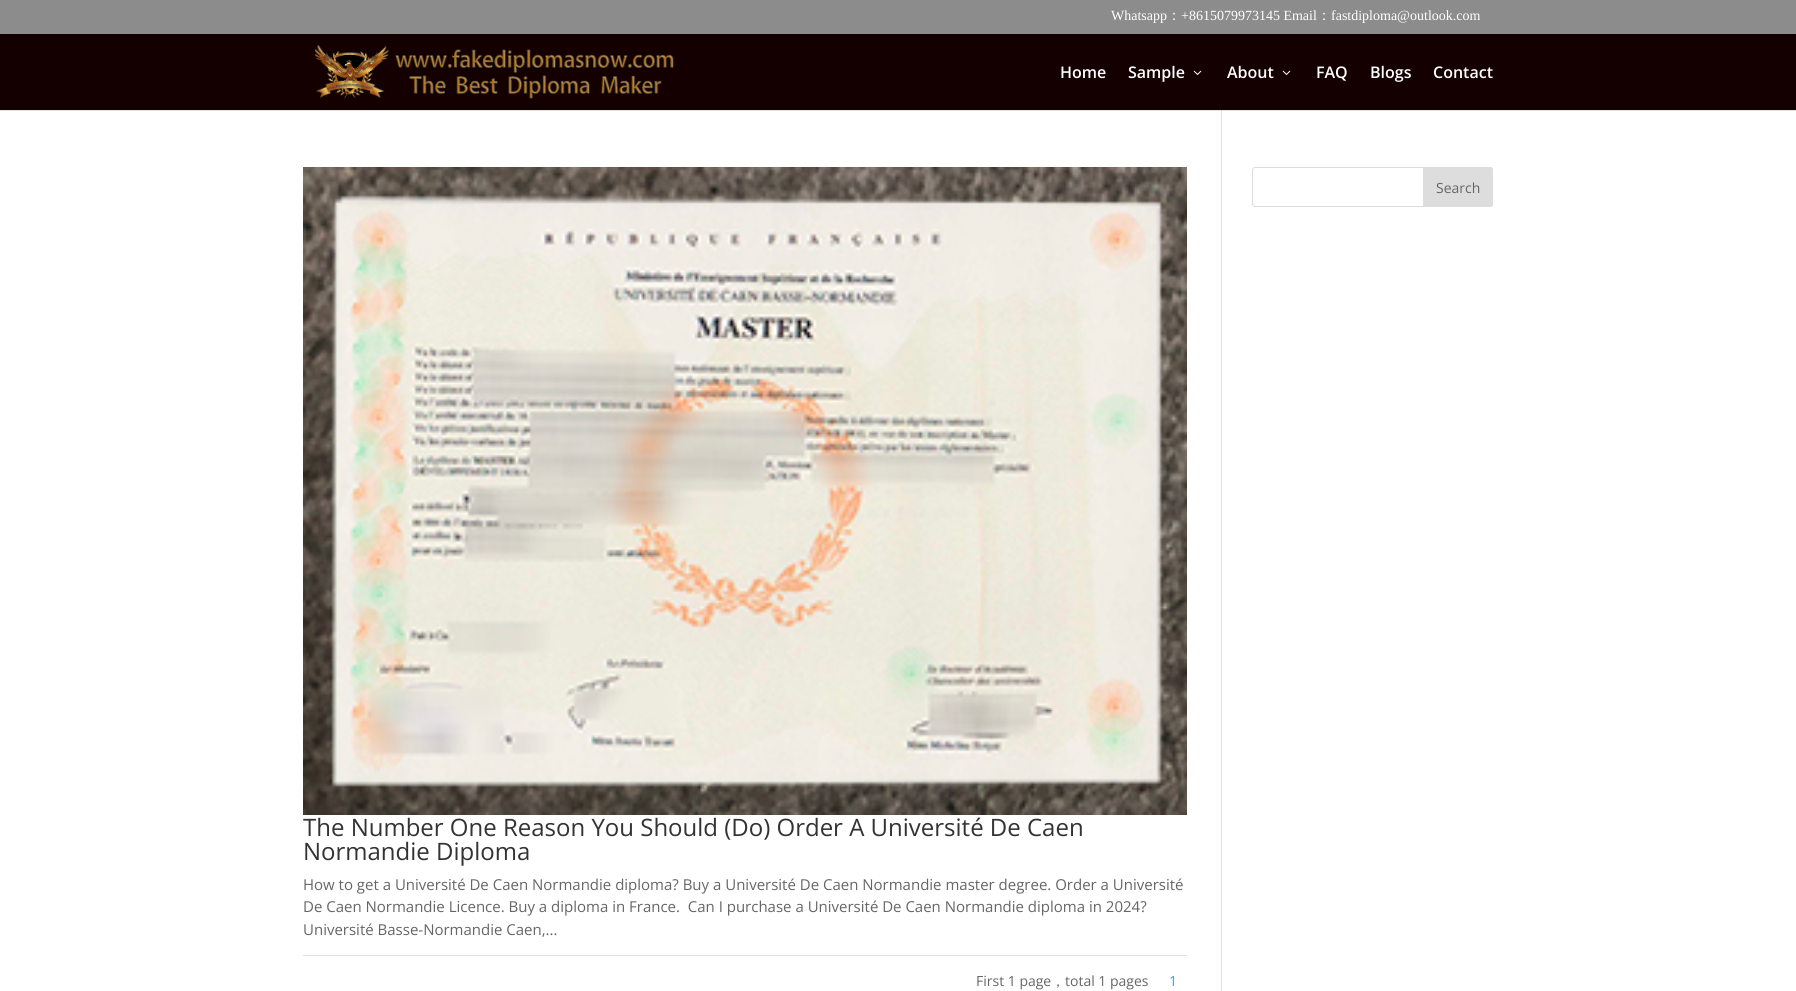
#include <cairo.h>
#include <math.h>
#include <stddef.h>

typedef struct { const char *family; double size; int italic, bold; unsigned color; } style_t;
static cairo_t *ctx;

static void ink(unsigned color) {
    cairo_set_source_rgb(ctx, (color >> 16) / 255.0, (color >> 8 & 255) / 255.0, (color & 255) / 255.0);
}

static void write(double x, double y, const char *s, const style_t *st) {
    cairo_select_font_face(ctx, st->family, st->italic ? CAIRO_FONT_SLANT_ITALIC : CAIRO_FONT_SLANT_NORMAL,
        st->bold ? CAIRO_FONT_WEIGHT_BOLD : CAIRO_FONT_WEIGHT_NORMAL);
    cairo_set_font_size(ctx, st->size);
    ink(st->color);
    cairo_move_to(ctx, x, y);
    cairo_show_text(ctx, s);
}

static void block(double x, double y, double w, double h, unsigned color) {
    ink(color);
    cairo_rectangle(ctx, x, y, w, h);
    cairo_fill(ctx);
}

static void round_path(double x, double y, double w, double h, double r) {
    cairo_new_sub_path(ctx);
    cairo_arc(ctx, x + w - r, y + h - r, r, 0, M_PI / 2);
    cairo_arc(ctx, x + r, y + h - r, r, M_PI / 2, M_PI);
    cairo_arc(ctx, x + r, y + r, r, M_PI, 1.5 * M_PI);
    cairo_arc(ctx, x + w - r, y + r, r, 1.5 * M_PI, 2 * M_PI);
    cairo_close_path(ctx);
}

static void paste(const char *path, double x, double y, double w, double h) {
    cairo_surface_t *image = cairo_image_surface_create_from_png(path);
    cairo_save(ctx);
    cairo_set_source_surface(ctx, image, x, y);
    cairo_rectangle(ctx, x, y, w, h);
    cairo_fill(ctx);
    cairo_restore(ctx);
    cairo_surface_destroy(image);
}

static const style_t s1 = {"Liberation Serif", 14, 0, 0, 0xffffff};
static const style_t s2 = {"WenQuanYi Zen Hei Medium", 14, 0, 0, 0xffffff};
static const style_t s3 = {"Open Sans SemiBold", 16, 0, 0, 0xffffff};
static const style_t s4 = {"Open Sans", 14, 0, 0, 0x666666};
static const style_t s5 = {"Open Sans", 24, 0, 0, 0x333333};
static const style_t s6 = {"Open Sans", 15, 0, 0, 0x666666};
static const style_t s7 = {"WenQuanYi Zen Hei Medium", 14, 0, 0, 0x666666};
static const style_t s8 = {"Open Sans", 14, 0, 0, 0x2ea3f2};

int main(void) {
    cairo_surface_t *surface = cairo_image_surface_create(CAIRO_FORMAT_RGB24, 1796, 991);
    ctx = cairo_create(surface);
    cairo_font_options_t *options = cairo_font_options_create();
    cairo_font_options_set_hint_metrics(options, CAIRO_HINT_METRICS_OFF);
    cairo_font_options_set_hint_style(options, CAIRO_HINT_STYLE_NONE);
    cairo_set_font_options(ctx, options);
    cairo_set_miter_limit(ctx, 4);
    ink(0xffffff);
    cairo_paint(ctx);
    block(0, 0, 1796, 34, 0x8c8c8c);
    write(1111, 20, "Whatsapp", &s1);
    write(1167, 20, "：", &s2);
    write(1181, 20, "+8615079973145 Email", &s1);
    write(1317, 20, "：", &s2);
    write(1331, 20, "fastdiploma@outlook.com", &s1);
    block(0, 110, 1796, 1, 0xe6e6e6);
    block(1221, 109, 1, 882, 0xe2e2e2);
    block(0, 34, 1796, 76, 0x140000);
    paste("pic1.png", 314, 44, 360, 55);
    write(1060, 78, "Home", &s3);
    write(1128, 78, "Sample", &s3);
    paste("pic2.png", 1193, 70, 9, 5);
    write(1227, 78, "About", &s3);
    paste("pic2.png", 1282, 70, 9, 5);
    write(1316, 78, "FAQ", &s3);
    write(1370, 78, "Blogs", &s3);
    write(1433, 78, "Contact", &s3);
    block(1221, 110, 1, 1, 0xcbcbcb);
    round_path(1252.5, 167.5, 240, 39, 2.5);
    ink(0xdddddd);
    cairo_set_line_width(ctx, 1);
    cairo_stroke(ctx);
    cairo_new_path(ctx);
    cairo_move_to(ctx, 1423.5, 167.5);
    cairo_line_to(ctx, 1490, 167.5);
    cairo_curve_to(ctx, 1491.5, 167.5, 1492.5, 168.5, 1492.5, 170);
    cairo_line_to(ctx, 1492.5, 204);
    cairo_curve_to(ctx, 1492.5, 205.5, 1491.5, 206.5, 1490, 206.5);
    cairo_line_to(ctx, 1423.5, 206.5);
    cairo_close_path(ctx);
    cairo_fill_preserve(ctx);
    cairo_stroke(ctx);
    write(1436, 193, "Search", &s4);
    paste("pic3.png", 303, 167, 884, 648);
    write(303, 836, "The Number One Reason You Should (Do) Order A Université De Caen", &s5);
    write(303, 860, "Normandie Diploma", &s5);
    write(303, 890, "How to get a Université De Caen Normandie diploma? Buy a Université De Caen Normandie master degree. Order a Université", &s6);
    write(303, 912, "De Caen Normandie Licence. Buy a diploma in France.  Can I purchase a Université De Caen Normandie diploma in 2024?", &s6);
    write(303, 935, "Université Basse-Normandie Caen,...", &s6);
    block(303, 955, 884, 1, 0xe2e2e2);
    write(976, 986, "First 1 page", &s4);
    write(1051, 986, "，", &s7);
    write(1065, 986, "total 1 pages", &s4);
    write(1169, 986, "1", &s8);
    cairo_surface_write_to_png(surface, "screenshot.png");
    cairo_font_options_destroy(options);
    cairo_destroy(ctx);
    cairo_surface_destroy(surface);
    return 0;
}
